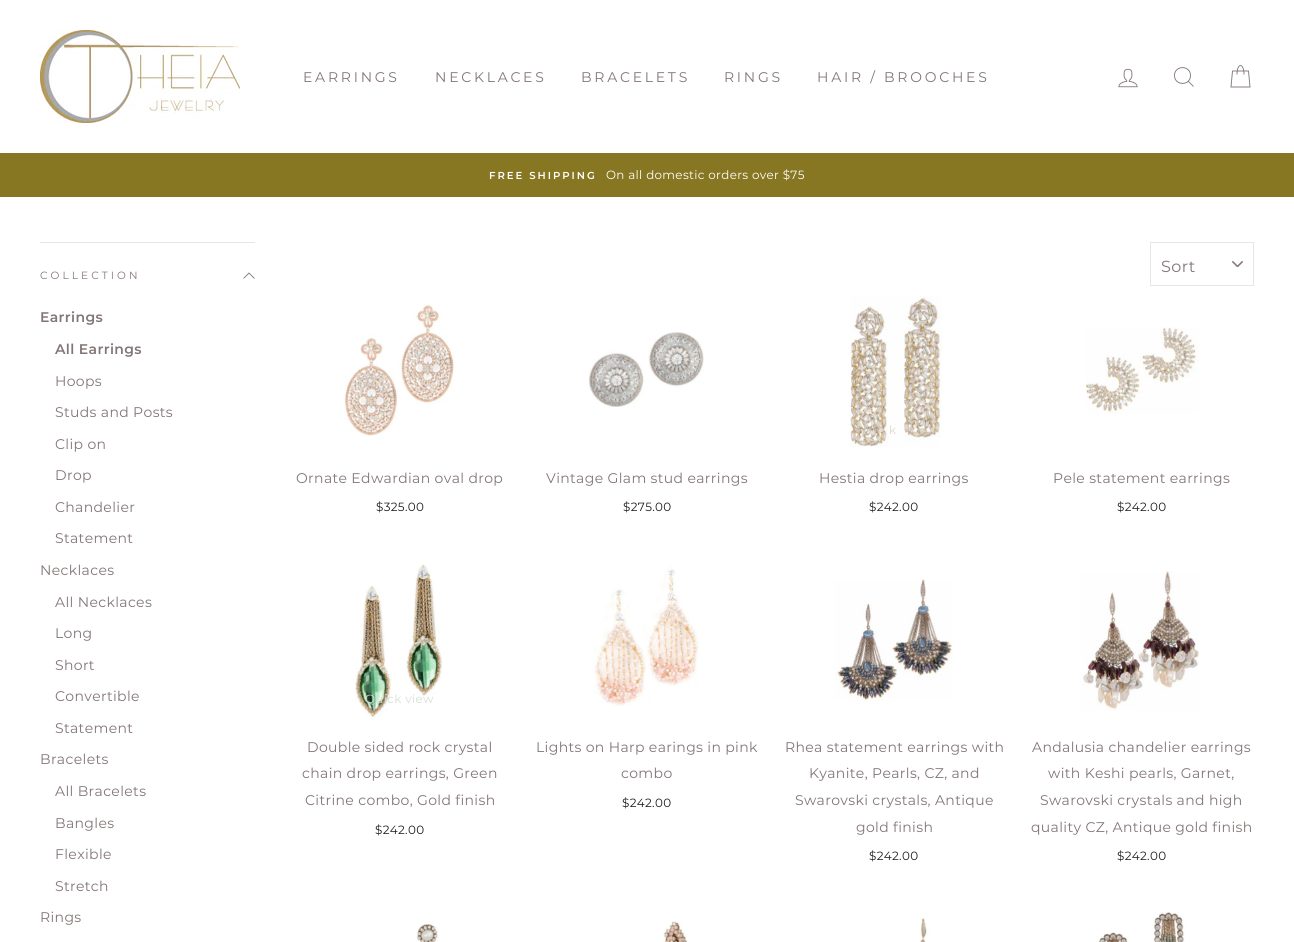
#include <cairo.h>
#include <math.h>
#include <stddef.h>

static cairo_t *ctx;

static void ink(unsigned color) {
    cairo_set_source_rgb(ctx, (color >> 16) / 255.0, (color >> 8 & 255) / 255.0, (color & 255) / 255.0);
}

static void write_spaced(double x, double y, const char *s, double letter, double word) {
    cairo_move_to(ctx, x, y);
    while (*s) {
        char ch[5] = {0};
        int n = 0;
        do ch[n++] = *s++; while ((*s & 0xC0) == 0x80);
        cairo_show_text(ctx, ch);
        cairo_rel_move_to(ctx, letter + word * (*ch == ' '), 0);
    }
}

static void block(double x, double y, double w, double h, unsigned color) {
    ink(color);
    cairo_rectangle(ctx, x, y, w, h);
    cairo_fill(ctx);
}

static void paste(const char *path, double x, double y, double w, double h) {
    cairo_surface_t *image = cairo_image_surface_create_from_png(path);
    cairo_save(ctx);
    cairo_set_source_surface(ctx, image, x, y);
    cairo_rectangle(ctx, x, y, w, h);
    cairo_fill(ctx);
    cairo_restore(ctx);
    cairo_surface_destroy(image);
}

int main(void) {
    cairo_surface_t *surface = cairo_image_surface_create(CAIRO_FORMAT_RGB24, 1294, 942);
    ctx = cairo_create(surface);
    cairo_font_options_t *options = cairo_font_options_create();
    cairo_font_options_set_hint_metrics(options, CAIRO_HINT_METRICS_OFF);
    cairo_font_options_set_hint_style(options, CAIRO_HINT_STYLE_NONE);
    cairo_set_font_options(ctx, options);
    cairo_set_miter_limit(ctx, 4);
    ink(0xffffff);
    cairo_paint(ctx);
    paste("pic1.png", 40, 30, 200, 93);
    cairo_select_font_face(ctx, "Montserrat", CAIRO_FONT_SLANT_NORMAL, CAIRO_FONT_WEIGHT_NORMAL);
    cairo_set_font_size(ctx, 14);
    ink(0x837676);
    write_spaced(303, 82, "EARRINGS", 2.75, 0);
    write_spaced(435, 82, "NECKLACES", 2.75, 0);
    write_spaced(581, 82, "BRACELETS", 2.75, 0);
    write_spaced(724, 82, "RINGS", 2.75, 0);
    write_spaced(817, 82, "HAIR / BROOCHES", 2.75, 0);
    paste("pic2.png", 1118, 68, 20, 20);
    cairo_new_path(ctx);
    cairo_move_to(ctx, 1190.5, 75.5);
    cairo_curve_to(ctx, 1190.5, 86, 1174.5, 86, 1174.5, 75.5);
    cairo_curve_to(ctx, 1174.5, 65, 1190.5, 65, 1190.5, 75.5);
    cairo_close_path(ctx);
    cairo_move_to(ctx, 1193.5, 86.5);
    cairo_line_to(ctx, 1188.5, 81.5);
    cairo_set_line_width(ctx, 0.9);
    cairo_stroke(ctx);
    cairo_new_path(ctx);
    cairo_move_to(ctx, 1237, 74.5);
    cairo_curve_to(ctx, 1237, 62.5, 1244, 62.5, 1244, 74.5);
    cairo_move_to(ctx, 1232.5, 71);
    cairo_line_to(ctx, 1248.5, 71);
    cairo_line_to(ctx, 1250, 87);
    cairo_line_to(ctx, 1231, 87);
    cairo_close_path(ctx);
    cairo_stroke(ctx);
    block(0, 153, 1294, 44, 0x887722);
    cairo_select_font_face(ctx, "Montserrat SemiBold", CAIRO_FONT_SLANT_NORMAL, CAIRO_FONT_WEIGHT_NORMAL);
    cairo_set_font_size(ctx, 10.1);
    ink(0xffffff);
    write_spaced(489, 179, "FREE SHIPPING", 2, 0);
    cairo_select_font_face(ctx, "Montserrat", CAIRO_FONT_SLANT_NORMAL, CAIRO_FONT_WEIGHT_NORMAL);
    cairo_set_font_size(ctx, 11.9);
    write_spaced(606, 179, "On all domestic orders over $75", 0.35, 0);
    block(40, 242, 215, 1, 0xe8e8e1);
    cairo_set_font_size(ctx, 10.5);
    ink(0x837676);
    write_spaced(40, 279, "COLLECTION", 3.1, 0);
    cairo_new_path(ctx);
    cairo_move_to(ctx, 243.5, 278.5);
    cairo_line_to(ctx, 249, 273);
    cairo_line_to(ctx, 254.5, 278.5);
    cairo_stroke(ctx);
    cairo_select_font_face(ctx, "Montserrat SemiBold", CAIRO_FONT_SLANT_NORMAL, CAIRO_FONT_WEIGHT_NORMAL);
    cairo_set_font_size(ctx, 14);
    write_spaced(40, 322, "Earrings", 0.35, 0);
    write_spaced(55, 354, "All Earrings", 0.35, 0);
    cairo_select_font_face(ctx, "Montserrat", CAIRO_FONT_SLANT_NORMAL, CAIRO_FONT_WEIGHT_NORMAL);
    write_spaced(55, 386, "Hoops", 0.35, 0);
    write_spaced(55, 417, "Studs and Posts", 0.35, 0);
    write_spaced(55, 449, "Clip on", 0.35, 0);
    write_spaced(55, 480, "Drop", 0.35, 0);
    write_spaced(55, 512, "Chandelier", 0.35, 0);
    write_spaced(55, 543, "Statement", 0.35, 0);
    write_spaced(40, 575, "Necklaces", 0.35, 0);
    write_spaced(55, 607, "All Necklaces", 0.35, 0);
    write_spaced(55, 638, "Long", 0.35, 0);
    write_spaced(55, 670, "Short", 0.35, 0);
    write_spaced(55, 701, "Convertible", 0.35, 0);
    write_spaced(55, 733, "Statement", 0.35, 0);
    write_spaced(40, 764, "Bracelets", 0.35, 0);
    write_spaced(55, 796, "All Bracelets", 0.35, 0);
    write_spaced(55, 828, "Bangles", 0.35, 0);
    write_spaced(55, 859, "Flexible", 0.35, 0);
    write_spaced(55, 891, "Stretch", 0.35, 0);
    write_spaced(40, 922, "Rings", 0.35, 0);
    paste("pic3.png", 1232, 261, 11, 6);
    cairo_rectangle(ctx, 1150.5, 242.5, 103, 43);
    ink(0xe8e8e1);
    cairo_set_line_width(ctx, 1);
    cairo_stroke(ctx);
    cairo_set_font_size(ctx, 16);
    ink(0x837676);
    write_spaced(1161, 272, "Sort", 0.5, 0);
    paste("pic4.png", 344, 304, 111, 132);
    cairo_set_font_size(ctx, 14);
    write_spaced(296, 483, "Ornate Edwardian oval drop", 0.35, 0);
    cairo_set_font_size(ctx, 11.9);
    ink(0x1c1d1d);
    write_spaced(376, 511, "$325.00", 0.35, 0);
    paste("pic5.png", 588, 332, 116, 75);
    cairo_set_font_size(ctx, 14);
    ink(0x837676);
    write_spaced(546, 483, "Vintage Glam stud earrings", 0.35, 0);
    cairo_set_font_size(ctx, 11.9);
    ink(0x1c1d1d);
    write_spaced(623, 511, "$275.00", 0.35, 0);
    paste("pic6.png", 850, 296, 92, 151);
    ink(0xdfd8cd);
    write_spaced(889, 434, "k", 0.35, 0);
    cairo_set_font_size(ctx, 14);
    ink(0x837676);
    write_spaced(819, 483, "Hestia drop earrings", 0.35, 0);
    cairo_set_font_size(ctx, 11.9);
    ink(0x1c1d1d);
    write_spaced(869, 511, "$242.00", 0.35, 0);
    paste("pic7.png", 1086, 327, 113, 87);
    cairo_set_font_size(ctx, 14);
    ink(0x837676);
    write_spaced(1053, 483, "Pele statement earrings", 0.35, 0);
    cairo_set_font_size(ctx, 11.9);
    ink(0x1c1d1d);
    write_spaced(1117, 511, "$242.00", 0.35, 0);
    paste("pic8.png", 355, 564, 87, 153);
    ink(0xd5e0d5);
    write_spaced(365, 703, "Quick view", 0.35, 0);
    cairo_set_font_size(ctx, 14);
    ink(0x837676);
    write_spaced(307, 752, "Double sided rock crystal", 0.35, 0);
    write_spaced(302, 778, "chain drop earrings, Green", 0.35, 0);
    write_spaced(305, 805, "Citrine combo, Gold finish", 0.35, 0);
    cairo_set_font_size(ctx, 11.9);
    ink(0x1c1d1d);
    write_spaced(375, 834, "$242.00", 0.35, 0);
    paste("pic9.png", 594, 565, 105, 141);
    cairo_set_font_size(ctx, 14);
    ink(0x837676);
    write_spaced(536, 752, "Lights on Harp earings in pink", 0.35, 0);
    write_spaced(621, 778, "combo", 0.35, 0);
    cairo_set_font_size(ctx, 11.9);
    ink(0x1c1d1d);
    write_spaced(622, 807, "$242.00", 0.35, 0);
    paste("pic10.png", 834, 579, 119, 122);
    cairo_set_font_size(ctx, 14);
    ink(0x837676);
    write_spaced(785, 752, "Rhea statement earrings with", 0.35, 0);
    write_spaced(809, 778, "Kyanite, Pearls, CZ, and", 0.35, 0);
    write_spaced(795, 805, "Swarovski crystals, Antique", 0.35, 0);
    write_spaced(856, 832, "gold finish", 0.35, 0);
    cairo_set_font_size(ctx, 11.9);
    ink(0x1c1d1d);
    write_spaced(869, 860, "$242.00", 0.35, 0);
    paste("pic11.png", 1081, 571, 118, 140);
    cairo_set_font_size(ctx, 14);
    ink(0x837676);
    write_spaced(1032, 752, "Andalusia chandelier earrings", 0.35, 0);
    write_spaced(1048, 778, "with Keshi pearls, Garnet,", 0.35, 0);
    write_spaced(1040, 805, "Swarovski crystals and high", 0.35, 0);
    write_spaced(1031, 832, "quality CZ, Antique gold finish", 0.35, 0);
    cairo_set_font_size(ctx, 11.9);
    ink(0x1c1d1d);
    write_spaced(1117, 860, "$242.00", 0.35, 0);
    paste("pic12.png", 416, 924, 23, 18);
    paste("pic13.png", 663, 921, 25, 21);
    paste("pic14.png", 920, 918, 11, 24);
    paste("pic15.png", 1097, 912, 88, 30);
    cairo_surface_write_to_png(surface, "screenshot.png");
    cairo_font_options_destroy(options);
    cairo_destroy(ctx);
    cairo_surface_destroy(surface);
    return 0;
}
